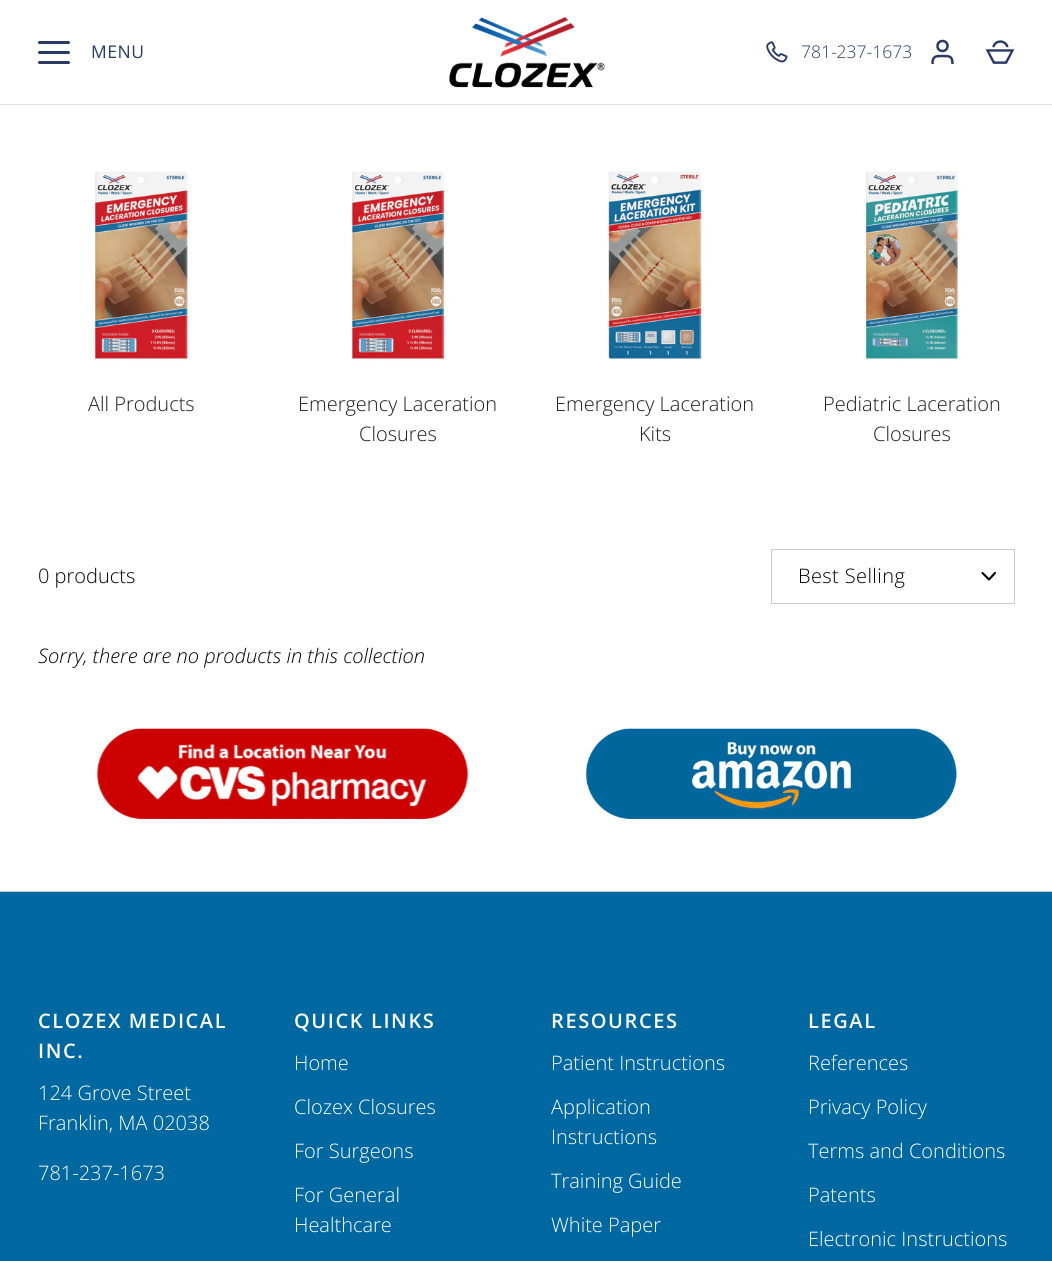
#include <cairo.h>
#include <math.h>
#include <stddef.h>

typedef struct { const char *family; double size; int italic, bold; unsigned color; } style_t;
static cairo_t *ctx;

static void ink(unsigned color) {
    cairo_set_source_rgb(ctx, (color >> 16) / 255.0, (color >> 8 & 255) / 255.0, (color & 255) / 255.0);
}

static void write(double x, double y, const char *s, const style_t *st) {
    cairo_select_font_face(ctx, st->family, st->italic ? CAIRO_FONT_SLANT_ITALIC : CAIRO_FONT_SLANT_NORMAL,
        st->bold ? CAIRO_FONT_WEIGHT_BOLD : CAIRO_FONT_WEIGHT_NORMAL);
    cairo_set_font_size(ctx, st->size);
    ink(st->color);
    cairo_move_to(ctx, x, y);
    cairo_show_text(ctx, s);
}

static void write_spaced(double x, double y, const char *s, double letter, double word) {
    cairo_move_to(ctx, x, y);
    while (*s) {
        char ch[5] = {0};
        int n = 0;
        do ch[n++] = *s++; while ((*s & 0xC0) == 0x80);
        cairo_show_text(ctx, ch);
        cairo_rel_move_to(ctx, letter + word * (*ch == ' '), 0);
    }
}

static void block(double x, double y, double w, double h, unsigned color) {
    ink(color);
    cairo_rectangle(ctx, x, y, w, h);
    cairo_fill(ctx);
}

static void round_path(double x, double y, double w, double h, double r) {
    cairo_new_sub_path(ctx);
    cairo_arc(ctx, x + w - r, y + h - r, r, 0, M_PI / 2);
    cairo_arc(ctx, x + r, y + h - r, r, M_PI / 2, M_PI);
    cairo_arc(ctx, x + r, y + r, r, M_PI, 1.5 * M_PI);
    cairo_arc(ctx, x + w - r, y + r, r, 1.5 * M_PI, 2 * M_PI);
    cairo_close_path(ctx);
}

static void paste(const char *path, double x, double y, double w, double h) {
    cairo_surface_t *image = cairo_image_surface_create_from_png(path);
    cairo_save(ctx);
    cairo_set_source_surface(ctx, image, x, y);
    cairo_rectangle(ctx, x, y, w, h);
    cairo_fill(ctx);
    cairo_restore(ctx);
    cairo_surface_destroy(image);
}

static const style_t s1 = {"Open Sans Light", 17.5, 0, 0, 0x293b65};
static const style_t s2 = {"Open Sans Light", 20, 0, 0, 0x1c1d1d};
static const style_t s3 = {"Open Sans Light", 20, 0, 0, 0x000000};
static const style_t s4 = {"Open Sans Light", 20, 1, 0, 0x000000};
static const style_t s5 = {"Open Sans Light", 20, 0, 0, 0xffffff};

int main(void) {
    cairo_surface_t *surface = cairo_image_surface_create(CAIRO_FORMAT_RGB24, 1052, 1261);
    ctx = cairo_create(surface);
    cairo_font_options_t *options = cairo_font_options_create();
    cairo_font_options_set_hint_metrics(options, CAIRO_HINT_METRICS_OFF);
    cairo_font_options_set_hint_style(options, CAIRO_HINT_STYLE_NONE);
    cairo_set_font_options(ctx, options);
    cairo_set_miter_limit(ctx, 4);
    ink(0xffffff);
    cairo_paint(ctx);
    ink(0x293b65);
    round_path(38, 41, 32, 3, 1.5);
    cairo_fill(ctx);
    round_path(38, 51, 32, 3, 1.5);
    cairo_fill(ctx);
    round_path(38, 61, 32, 3, 1.5);
    cairo_fill(ctx);
    cairo_select_font_face(ctx, "Open Sans", CAIRO_FONT_SLANT_NORMAL, CAIRO_FONT_WEIGHT_NORMAL);
    cairo_set_font_size(ctx, 17.5);
    write_spaced(91, 58, "MENU", 0.5, 0);
    paste("pic1.png", 449, 17, 156, 71);
    paste("pic2.png", 766, 41, 22, 22);
    write(801, 58, "781-237-1673", &s1);
    cairo_new_path(ctx);
    cairo_arc(ctx, 942.5, 46, 5, 0, 2 * M_PI);
    cairo_set_line_width(ctx, 2.5);
    cairo_stroke(ctx);
    cairo_new_path(ctx);
    cairo_move_to(ctx, 952.5, 64);
    cairo_curve_to(ctx, 952.5, 56, 949.5, 56, 942.5, 56);
    cairo_curve_to(ctx, 935.5, 56, 932.5, 56, 932.5, 64);
    cairo_stroke(ctx);
    paste("pic3.png", 985, 40, 30, 24);
    block(0, 104, 1052, 1, 0xdfe2e8);
    paste("pic4.png", 93, 171, 99, 190);
    write(88, 411, "All Products", &s2);
    paste("pic5.png", 350, 171, 99, 190);
    write(298, 411, "Emergency Laceration", &s2);
    write(359, 441, "Closures", &s2);
    paste("pic6.png", 607, 171, 99, 189);
    write(555, 411, "Emergency Laceration", &s2);
    write(639, 441, "Kits", &s2);
    paste("pic7.png", 864, 171, 99, 190);
    write(823, 411, "Pediatric Laceration", &s2);
    write(873, 441, "Closures", &s2);
    write(38, 583, "0 products", &s3);
    cairo_rectangle(ctx, 771.5, 549.5, 243, 54);
    ink(0xcccccc);
    cairo_set_line_width(ctx, 1);
    cairo_stroke(ctx);
    ink(0x000000);
    write_spaced(798, 583, "Best Selling", 0.4, 0);
    cairo_new_path(ctx);
    cairo_move_to(ctx, 982.5, 573);
    cairo_line_to(ctx, 989, 579.5);
    cairo_line_to(ctx, 995, 573);
    cairo_set_line_width(ctx, 2.1);
    cairo_set_line_cap(ctx, CAIRO_LINE_CAP_ROUND);
    cairo_set_line_join(ctx, CAIRO_LINE_JOIN_ROUND);
    cairo_stroke(ctx);
    write(38, 663, "Sorry, there are no products in this collection", &s4);
    paste("pic8.png", 97, 728, 372, 91);
    paste("pic9.png", 586, 728, 371, 91);
    block(0, 892, 1052, 369, 0x0068a0);
    block(0, 891, 1052, 1, 0xcccccc);
    cairo_select_font_face(ctx, "Open Sans SemiBold", CAIRO_FONT_SLANT_NORMAL, CAIRO_FONT_WEIGHT_NORMAL);
    ink(0xffffff);
    write_spaced(38, 1028, "CLOZEX MEDICAL", 1.6, 0);
    write_spaced(38, 1058, "INC.", 1.6, 0);
    write(38, 1100, "124 Grove Street", &s5);
    write(38, 1130, "Franklin, MA 02038", &s5);
    write(38, 1180, "781-237-1673", &s5);
    cairo_select_font_face(ctx, "Open Sans SemiBold", CAIRO_FONT_SLANT_NORMAL, CAIRO_FONT_WEIGHT_NORMAL);
    write_spaced(294, 1028, "QUICK LINKS", 1.6, 0);
    write(294, 1070, "Home", &s5);
    write(294, 1114, "Clozex Closures", &s5);
    write(294, 1158, "For Surgeons", &s5);
    write(294, 1202, "For General", &s5);
    write(294, 1232, "Healthcare", &s5);
    cairo_select_font_face(ctx, "Open Sans SemiBold", CAIRO_FONT_SLANT_NORMAL, CAIRO_FONT_WEIGHT_NORMAL);
    write_spaced(551, 1028, "RESOURCES", 1.6, 0);
    write(551, 1070, "Patient Instructions", &s5);
    write(551, 1114, "Application", &s5);
    write(551, 1144, "Instructions", &s5);
    write(551, 1188, "Training Guide", &s5);
    write(551, 1232, "White Paper", &s5);
    cairo_select_font_face(ctx, "Open Sans SemiBold", CAIRO_FONT_SLANT_NORMAL, CAIRO_FONT_WEIGHT_NORMAL);
    write_spaced(808, 1028, "LEGAL", 1.6, 0);
    write(808, 1070, "References", &s5);
    write(808, 1114, "Privacy Policy", &s5);
    write(808, 1158, "Terms and Conditions", &s5);
    write(808, 1202, "Patents", &s5);
    write(808, 1246, "Electronic Instructions", &s5);
    cairo_surface_write_to_png(surface, "screenshot.png");
    cairo_font_options_destroy(options);
    cairo_destroy(ctx);
    cairo_surface_destroy(surface);
    return 0;
}
